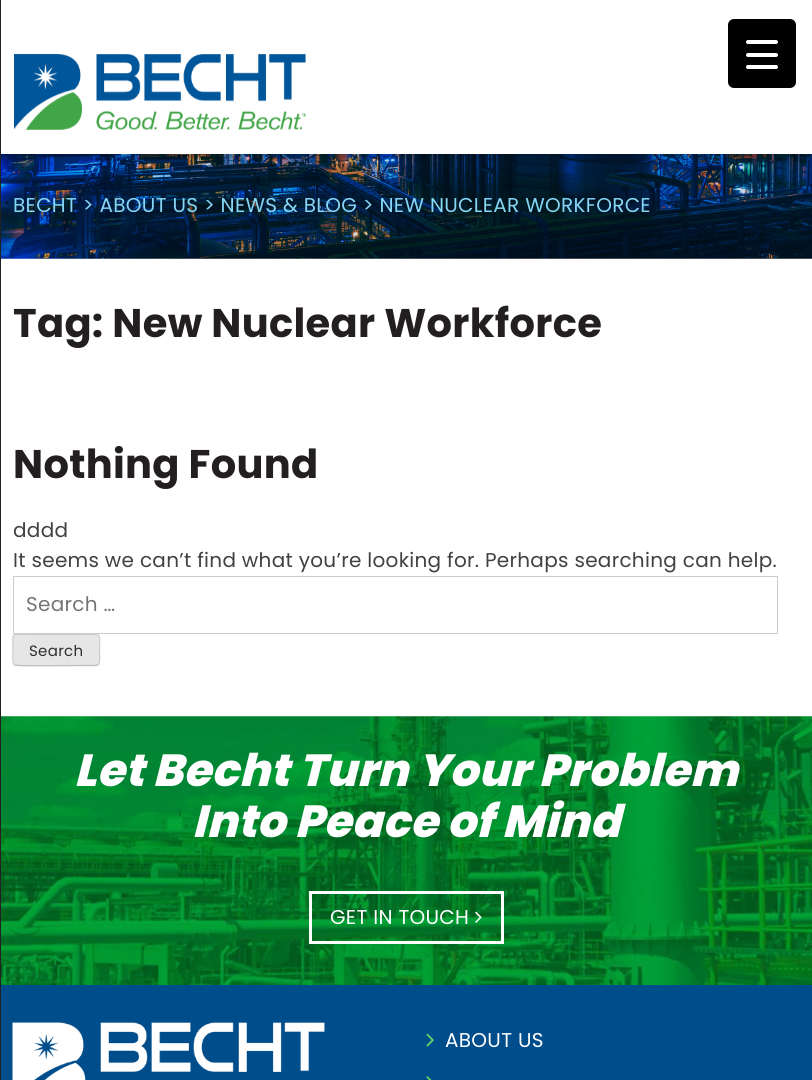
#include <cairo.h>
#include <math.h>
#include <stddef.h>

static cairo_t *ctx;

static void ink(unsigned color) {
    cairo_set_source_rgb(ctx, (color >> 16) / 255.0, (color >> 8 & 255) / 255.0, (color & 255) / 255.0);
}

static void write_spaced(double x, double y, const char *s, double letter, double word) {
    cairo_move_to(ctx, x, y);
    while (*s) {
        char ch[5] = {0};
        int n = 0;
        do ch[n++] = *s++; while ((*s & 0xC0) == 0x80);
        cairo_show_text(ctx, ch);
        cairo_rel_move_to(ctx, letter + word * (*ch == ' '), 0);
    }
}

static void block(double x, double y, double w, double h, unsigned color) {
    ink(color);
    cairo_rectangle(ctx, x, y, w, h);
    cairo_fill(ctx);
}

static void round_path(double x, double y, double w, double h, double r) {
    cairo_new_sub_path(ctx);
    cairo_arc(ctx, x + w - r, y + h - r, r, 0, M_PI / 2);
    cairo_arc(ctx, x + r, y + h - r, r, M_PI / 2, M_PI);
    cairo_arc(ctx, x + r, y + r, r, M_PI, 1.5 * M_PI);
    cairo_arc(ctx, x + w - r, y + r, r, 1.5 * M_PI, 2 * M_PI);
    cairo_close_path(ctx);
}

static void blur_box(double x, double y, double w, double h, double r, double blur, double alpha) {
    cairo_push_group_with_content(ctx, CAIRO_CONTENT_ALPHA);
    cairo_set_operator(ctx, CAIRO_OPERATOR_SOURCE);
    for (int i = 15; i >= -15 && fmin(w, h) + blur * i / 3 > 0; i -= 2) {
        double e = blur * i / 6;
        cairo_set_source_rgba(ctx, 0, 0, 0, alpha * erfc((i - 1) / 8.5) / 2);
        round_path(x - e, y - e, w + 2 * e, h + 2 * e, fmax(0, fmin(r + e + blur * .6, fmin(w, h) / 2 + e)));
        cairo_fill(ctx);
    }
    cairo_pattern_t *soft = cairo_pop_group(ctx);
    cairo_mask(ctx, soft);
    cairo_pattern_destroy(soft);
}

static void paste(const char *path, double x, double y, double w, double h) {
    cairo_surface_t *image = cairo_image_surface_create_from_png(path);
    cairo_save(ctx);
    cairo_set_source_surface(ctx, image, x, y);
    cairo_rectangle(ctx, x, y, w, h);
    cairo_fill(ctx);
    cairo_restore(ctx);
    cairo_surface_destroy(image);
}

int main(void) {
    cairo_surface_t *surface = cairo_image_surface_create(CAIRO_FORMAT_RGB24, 812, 1080);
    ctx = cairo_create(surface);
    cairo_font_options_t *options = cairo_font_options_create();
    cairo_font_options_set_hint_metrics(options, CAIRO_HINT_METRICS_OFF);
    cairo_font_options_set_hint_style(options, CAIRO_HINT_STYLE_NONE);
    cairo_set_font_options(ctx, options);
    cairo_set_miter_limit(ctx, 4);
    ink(0xffffff);
    cairo_paint(ctx);
    paste("pic2.png", 1, 154, 811, 105);
    ink(0x000000);
    blur_box(-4, -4, 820, 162, 0, 3, 0.15);
    block(0, 0, 1, 1080, 0x212121);
    block(1, 0, 811, 154, 0xffffff);
    ink(0x000000);
    round_path(728, 19, 68, 69, 6);
    cairo_fill(ctx);
    ink(0xffffff);
    round_path(746, 53, 32, 4, 2);
    cairo_fill(ctx);
    round_path(746, 40, 32, 4, 2);
    cairo_fill(ctx);
    round_path(746, 65, 32, 4, 2);
    cairo_fill(ctx);
    paste("pic1.png", 14, 54, 292, 76);
    cairo_select_font_face(ctx, "Poppins", CAIRO_FONT_SLANT_NORMAL, CAIRO_FONT_WEIGHT_NORMAL);
    cairo_set_font_size(ctx, 20);
    ink(0x86d6f6);
    write_spaced(13, 212, "BECHT > ABOUT US > NEWS & BLOG > NEW NUCLEAR WORKFORCE", 0.3, 0);
    cairo_select_font_face(ctx, "Poppins", CAIRO_FONT_SLANT_NORMAL, CAIRO_FONT_WEIGHT_BOLD);
    cairo_set_font_size(ctx, 40);
    ink(0x231f20);
    write_spaced(13, 337, "Tag: New Nuclear Workforce", 0.3, 0);
    write_spaced(13, 478, "Nothing Found", 0.3, 0);
    cairo_select_font_face(ctx, "Poppins", CAIRO_FONT_SLANT_NORMAL, CAIRO_FONT_WEIGHT_NORMAL);
    cairo_set_font_size(ctx, 20);
    ink(0x414042);
    write_spaced(13, 537, "dddd", 0.3, 0);
    write_spaced(13, 567, "It seems we can’t find what you’re looking for. Perhaps searching can help.", 0.3, 0);
    cairo_rectangle(ctx, 13.5, 576.5, 764, 57);
    ink(0xcccccc);
    cairo_set_line_width(ctx, 1);
    cairo_stroke(ctx);
    ink(0x757575);
    write_spaced(26, 611, "Search …", 0.3, 0);
    ink(0xe6e6e6);
    round_path(13, 634, 87, 32, 4);
    cairo_fill(ctx);
    cairo_new_path(ctx);
    cairo_move_to(ctx, 98.5, 664.5);
    cairo_line_to(ctx, 96, 665.5);
    cairo_line_to(ctx, 83, 665.5);
    cairo_curve_to(ctx, 75.5, 665.5, 16.5, 666.5, 14.5, 665);
    cairo_line_to(ctx, 14, 664.5);
    ink(0xbbbbbb);
    cairo_set_line_width(ctx, 1.2);
    cairo_stroke(ctx);
    cairo_new_path(ctx);
    cairo_move_to(ctx, 14, 664.5);
    cairo_curve_to(ctx, 12, 662.5, 13, 653, 13, 650);
    cairo_curve_to(ctx, 13, 631.5, 10, 634.5, 29.5, 634.5);
    cairo_line_to(ctx, 83, 634.5);
    cairo_curve_to(ctx, 102.5, 634.5, 99.5, 631.5, 99.5, 650);
    cairo_curve_to(ctx, 99.5, 653, 100.5, 662.5, 98.5, 664.5);
    ink(0xcccccc);
    cairo_stroke(ctx);
    cairo_set_font_size(ctx, 15);
    ink(0x2e2e2e);
    write_spaced(29, 656, "Search", 0.3, 0);
    paste("pic3.png", 1, 716, 811, 269);
    cairo_select_font_face(ctx, "Poppins ExtraBold", CAIRO_FONT_SLANT_ITALIC, CAIRO_FONT_WEIGHT_NORMAL);
    cairo_set_font_size(ctx, 45);
    ink(0xffffff);
    write_spaced(74, 786, "Let Becht Turn Your Problem", 0.3, 0);
    write_spaced(192, 837, "Into Peace of Mind", 0.3, 0);
    cairo_rectangle(ctx, 310.5, 892.5, 192, 50);
    cairo_set_line_width(ctx, 3);
    cairo_stroke(ctx);
    cairo_select_font_face(ctx, "Poppins", CAIRO_FONT_SLANT_NORMAL, CAIRO_FONT_WEIGHT_NORMAL);
    cairo_set_font_size(ctx, 20);
    write_spaced(330, 924, "GET IN TOUCH", 0.3, 0);
    paste("pic4.png", 475, 911, 7, 12);
    block(1, 985, 811, 95, 0x004d8c);
    paste("pic5.png", 12, 1022, 313, 58);
    paste("pic6.png", 426, 1033, 8, 14);
    ink(0xffffff);
    write_spaced(445, 1047, "ABOUT US", 0.3, 0);
    paste("pic7.png", 426, 1076, 6, 4);
    cairo_surface_write_to_png(surface, "screenshot.png");
    cairo_font_options_destroy(options);
    cairo_destroy(ctx);
    cairo_surface_destroy(surface);
    return 0;
}
